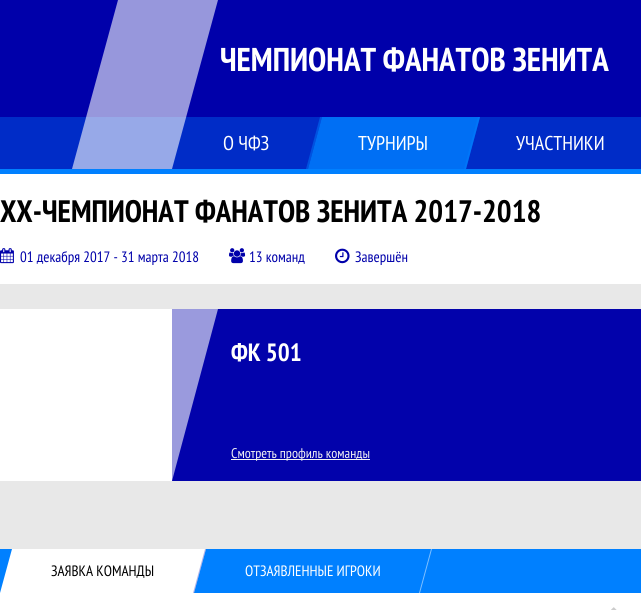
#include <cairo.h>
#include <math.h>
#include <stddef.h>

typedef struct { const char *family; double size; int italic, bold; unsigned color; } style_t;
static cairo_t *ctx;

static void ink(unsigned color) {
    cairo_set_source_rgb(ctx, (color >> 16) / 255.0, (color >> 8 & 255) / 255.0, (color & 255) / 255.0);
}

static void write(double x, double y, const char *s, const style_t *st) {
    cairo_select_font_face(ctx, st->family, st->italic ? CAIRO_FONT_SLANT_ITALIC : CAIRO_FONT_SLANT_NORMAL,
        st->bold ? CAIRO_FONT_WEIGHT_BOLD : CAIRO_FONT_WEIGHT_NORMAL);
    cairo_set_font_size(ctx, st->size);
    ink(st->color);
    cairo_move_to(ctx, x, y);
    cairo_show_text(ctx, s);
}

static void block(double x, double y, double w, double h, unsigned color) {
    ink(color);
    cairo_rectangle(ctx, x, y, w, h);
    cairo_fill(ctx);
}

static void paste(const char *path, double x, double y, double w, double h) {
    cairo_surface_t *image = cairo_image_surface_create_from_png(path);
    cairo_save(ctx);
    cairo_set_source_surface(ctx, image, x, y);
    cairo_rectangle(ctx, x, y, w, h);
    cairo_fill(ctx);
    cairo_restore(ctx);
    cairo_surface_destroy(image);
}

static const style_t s1 = {"PT Sans Narrow", 33, 0, 1, 0xffffff};
static const style_t s2 = {"PT Sans Narrow", 20, 0, 0, 0xffffff};
static const style_t s3 = {"PT Sans Narrow", 31, 0, 1, 0x000000};
static const style_t s4 = {"PT Sans Narrow", 15, 0, 0, 0x0000aa};
static const style_t s5 = {"PT Sans Narrow", 25, 0, 1, 0xffffff};
static const style_t s6 = {"PT Sans Narrow", 14, 0, 0, 0xf3f3f3};
static const style_t s7 = {"PT Sans Narrow", 15, 0, 0, 0x000000};
static const style_t s8 = {"PT Sans Narrow", 15, 0, 0, 0xffffff};

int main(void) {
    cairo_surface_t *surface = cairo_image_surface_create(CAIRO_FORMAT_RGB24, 641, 610);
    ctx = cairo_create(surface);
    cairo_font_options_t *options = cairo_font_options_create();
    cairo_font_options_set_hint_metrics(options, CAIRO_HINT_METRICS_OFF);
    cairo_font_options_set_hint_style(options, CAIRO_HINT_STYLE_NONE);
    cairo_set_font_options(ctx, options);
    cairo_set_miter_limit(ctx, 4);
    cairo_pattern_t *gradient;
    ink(0xe8e8e8);
    cairo_paint(ctx);
    block(0, 0, 641, 117, 0x0000aa);
    block(0, 117, 641, 52, 0x002cc7);
    cairo_set_source_rgba(ctx, 1, 1, 1, 0.59);
    cairo_new_path(ctx);
    cairo_move_to(ctx, 118, 0);
    cairo_line_to(ctx, 218, 0);
    cairo_line_to(ctx, 172, 169);
    cairo_line_to(ctx, 72, 169);
    cairo_close_path(ctx);
    cairo_fill(ctx);
    write(220, 71, "ЧЕМПИОНАТ ФАНАТОВ ЗЕНИТА", &s1);
    ink(0x0052e0);
    cairo_new_path(ctx);
    cairo_move_to(ctx, 320, 117);
    cairo_line_to(ctx, 322, 117);
    cairo_line_to(ctx, 308, 169);
    cairo_line_to(ctx, 306, 169);
    cairo_close_path(ctx);
    cairo_fill(ctx);
    write(223, 150, "О ЧФЗ", &s2);
    cairo_set_source_rgba(ctx, 0, 0.502, 1, 0.8);
    cairo_new_path(ctx);
    cairo_move_to(ctx, 322, 117);
    cairo_line_to(ctx, 480, 117);
    cairo_line_to(ctx, 466, 169);
    cairo_line_to(ctx, 308, 169);
    cairo_close_path(ctx);
    cairo_fill(ctx);
    cairo_set_source_rgba(ctx, 0, 0.502, 1, 0.45);
    cairo_new_path(ctx);
    cairo_move_to(ctx, 478, 117);
    cairo_line_to(ctx, 480, 117);
    cairo_line_to(ctx, 466, 169);
    cairo_line_to(ctx, 464, 169);
    cairo_close_path(ctx);
    cairo_fill(ctx);
    write(358, 150, "ТУРНИРЫ", &s2);
    write(516, 150, "УЧАСТНИКИ", &s2);
    block(0, 169, 641, 5, 0x0080ff);
    block(0, 174, 641, 110, 0xffffff);
    write(0, 222, "XX-ЧЕМПИОНАТ ФАНАТОВ ЗЕНИТА 2017-2018", &s3);
    paste("pic1.png", 0, 248, 14, 16);
    write(20, 262, "01 декабря 2017 - 31 марта 2018", &s4);
    paste("pic2.png", 229, 248, 17, 16);
    write(249, 262, "13 команд", &s4);
    paste("pic3.png", 335, 248, 15, 16);
    write(355, 262, "Завершён", &s4);
    gradient = cairo_pattern_create_linear(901, 515, 9, 275);
    cairo_pattern_add_color_stop_rgba(gradient, 0.27, 0.145, 0.145, 0.706, 1);
    cairo_pattern_add_color_stop_rgba(gradient, 0.27, 0.008, 0.008, 0.671, 1);
    cairo_pattern_add_color_stop_rgba(gradient, 1, 0.008, 0.008, 0.671, 1);
    cairo_set_source(ctx, gradient);
    cairo_pattern_destroy(gradient);
    cairo_rectangle(ctx, 172, 309, 469, 172);
    cairo_fill(ctx);
    ink(0x9a9add);
    cairo_new_path(ctx);
    cairo_move_to(ctx, 125, 309);
    cairo_line_to(ctx, 218, 309);
    cairo_line_to(ctx, 172, 481);
    cairo_line_to(ctx, 79, 481);
    cairo_close_path(ctx);
    cairo_fill(ctx);
    block(0, 309, 172, 172, 0xffffff);
    write(231, 361, "ФК 501", &s5);
    block(231, 459, 139, 1, 0xf3f3f3);
    write(231, 458, "Смотреть профиль команды", &s6);
    block(0, 549, 641, 44, 0x0080ff);
    ink(0xffffff);
    cairo_new_path(ctx);
    cairo_move_to(ctx, 12, 549);
    cairo_line_to(ctx, 206, 549);
    cairo_line_to(ctx, 194, 593);
    cairo_line_to(ctx, 0, 593);
    cairo_close_path(ctx);
    cairo_fill(ctx);
    cairo_set_source_rgba(ctx, 0, 0, 0.667, 0.3);
    cairo_new_path(ctx);
    cairo_move_to(ctx, 205, 549);
    cairo_line_to(ctx, 206, 549);
    cairo_line_to(ctx, 194, 593);
    cairo_line_to(ctx, 193, 593);
    cairo_close_path(ctx);
    cairo_fill(ctx);
    write(51, 576, "ЗАЯВКА КОМАНДЫ", &s7);
    ink(0x80c0ff);
    cairo_new_path(ctx);
    cairo_move_to(ctx, 431, 549);
    cairo_line_to(ctx, 432, 549);
    cairo_line_to(ctx, 420, 593);
    cairo_line_to(ctx, 419, 593);
    cairo_close_path(ctx);
    cairo_fill(ctx);
    write(245, 576, "ОТЗАЯВЛЕННЫЕ ИГРОКИ", &s8);
    block(0, 593, 641, 17, 0xffffff);
    paste("pic4.png", 611, 607, 6, 3);
    cairo_surface_write_to_png(surface, "screenshot.png");
    cairo_font_options_destroy(options);
    cairo_destroy(ctx);
    cairo_surface_destroy(surface);
    return 0;
}
